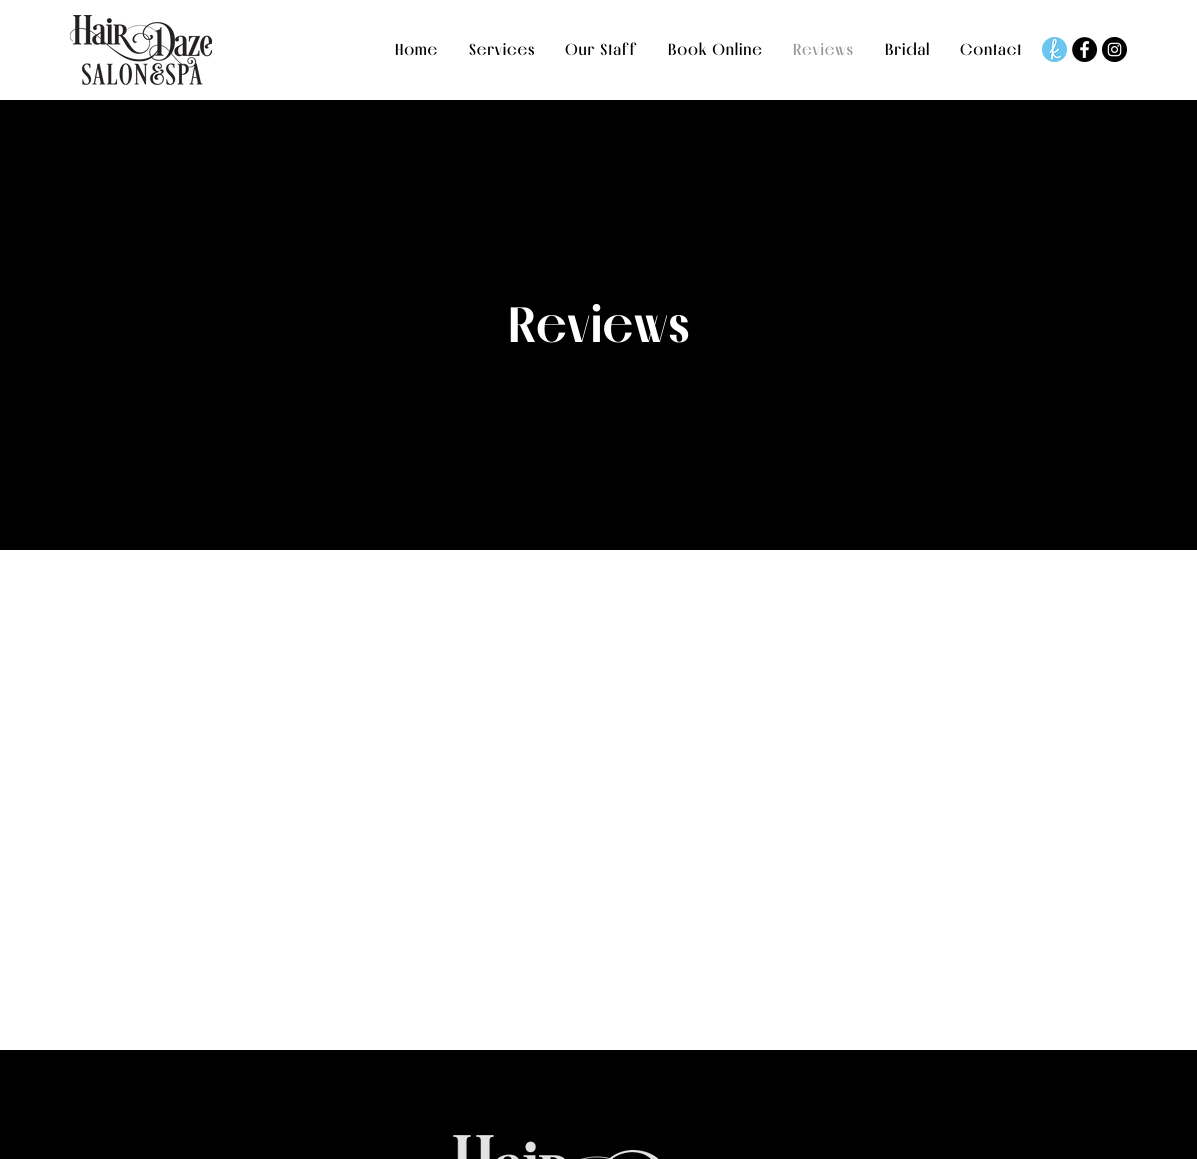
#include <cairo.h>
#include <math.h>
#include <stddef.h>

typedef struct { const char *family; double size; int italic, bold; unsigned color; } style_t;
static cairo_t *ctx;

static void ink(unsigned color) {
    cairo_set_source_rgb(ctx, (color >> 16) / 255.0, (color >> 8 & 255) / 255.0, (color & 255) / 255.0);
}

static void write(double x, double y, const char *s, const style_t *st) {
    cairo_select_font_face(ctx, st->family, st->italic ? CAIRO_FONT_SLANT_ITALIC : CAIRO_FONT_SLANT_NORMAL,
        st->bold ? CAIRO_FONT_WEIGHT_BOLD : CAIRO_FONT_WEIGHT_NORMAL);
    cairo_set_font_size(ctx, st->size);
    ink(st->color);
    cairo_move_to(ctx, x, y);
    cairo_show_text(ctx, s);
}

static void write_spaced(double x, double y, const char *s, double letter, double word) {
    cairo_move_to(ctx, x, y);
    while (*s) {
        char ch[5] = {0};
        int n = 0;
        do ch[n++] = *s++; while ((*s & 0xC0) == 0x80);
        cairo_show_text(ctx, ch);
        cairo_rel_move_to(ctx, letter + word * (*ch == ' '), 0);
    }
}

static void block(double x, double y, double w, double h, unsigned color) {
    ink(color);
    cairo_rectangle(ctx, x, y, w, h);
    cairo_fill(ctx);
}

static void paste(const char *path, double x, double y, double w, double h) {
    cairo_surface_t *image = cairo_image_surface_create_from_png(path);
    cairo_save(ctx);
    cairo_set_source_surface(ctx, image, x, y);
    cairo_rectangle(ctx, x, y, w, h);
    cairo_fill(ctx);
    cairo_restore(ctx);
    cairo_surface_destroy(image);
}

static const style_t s1 = {"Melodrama", 50, 0, 1, 0xffffff};

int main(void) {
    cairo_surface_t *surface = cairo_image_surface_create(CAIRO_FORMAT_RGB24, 1197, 1159);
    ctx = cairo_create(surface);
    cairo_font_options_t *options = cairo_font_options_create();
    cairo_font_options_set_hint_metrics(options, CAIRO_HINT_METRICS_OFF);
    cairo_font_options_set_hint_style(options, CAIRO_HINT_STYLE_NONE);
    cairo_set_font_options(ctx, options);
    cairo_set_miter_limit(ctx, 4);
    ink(0xffffff);
    cairo_paint(ctx);
    paste("pic1.png", 70, 15, 142, 70);
    cairo_select_font_face(ctx, "Melodrama SemiBold", CAIRO_FONT_SLANT_NORMAL, CAIRO_FONT_WEIGHT_NORMAL);
    cairo_set_font_size(ctx, 16);
    ink(0x000000);
    write_spaced(395, 55, "Home", 0.75, 0);
    write_spaced(469, 55, "Services", 0.75, 0);
    write_spaced(565, 55, "Our Staff", 0.75, 0);
    write_spaced(668, 55, "Book Online", 0.75, 0);
    ink(0x959595);
    write_spaced(793, 55, "Reviews", 0.75, 0);
    ink(0x000000);
    write_spaced(885, 55, "Bridal", 0.75, 0);
    write_spaced(960, 55, "Contact", 0.75, 0);
    paste("pic2.png", 1042, 37, 25, 25);
    paste("pic3.png", 1072, 37, 25, 25);
    paste("pic4.png", 1102, 37, 25, 25);
    block(0, 100, 1197, 450, 0x000000);
    write(508, 342, "Reviews", &s1);
    block(0, 1050, 1197, 109, 0x000000);
    paste("pic5.png", 453, 1135, 206, 24);
    cairo_surface_write_to_png(surface, "screenshot.png");
    cairo_font_options_destroy(options);
    cairo_destroy(ctx);
    cairo_surface_destroy(surface);
    return 0;
}
